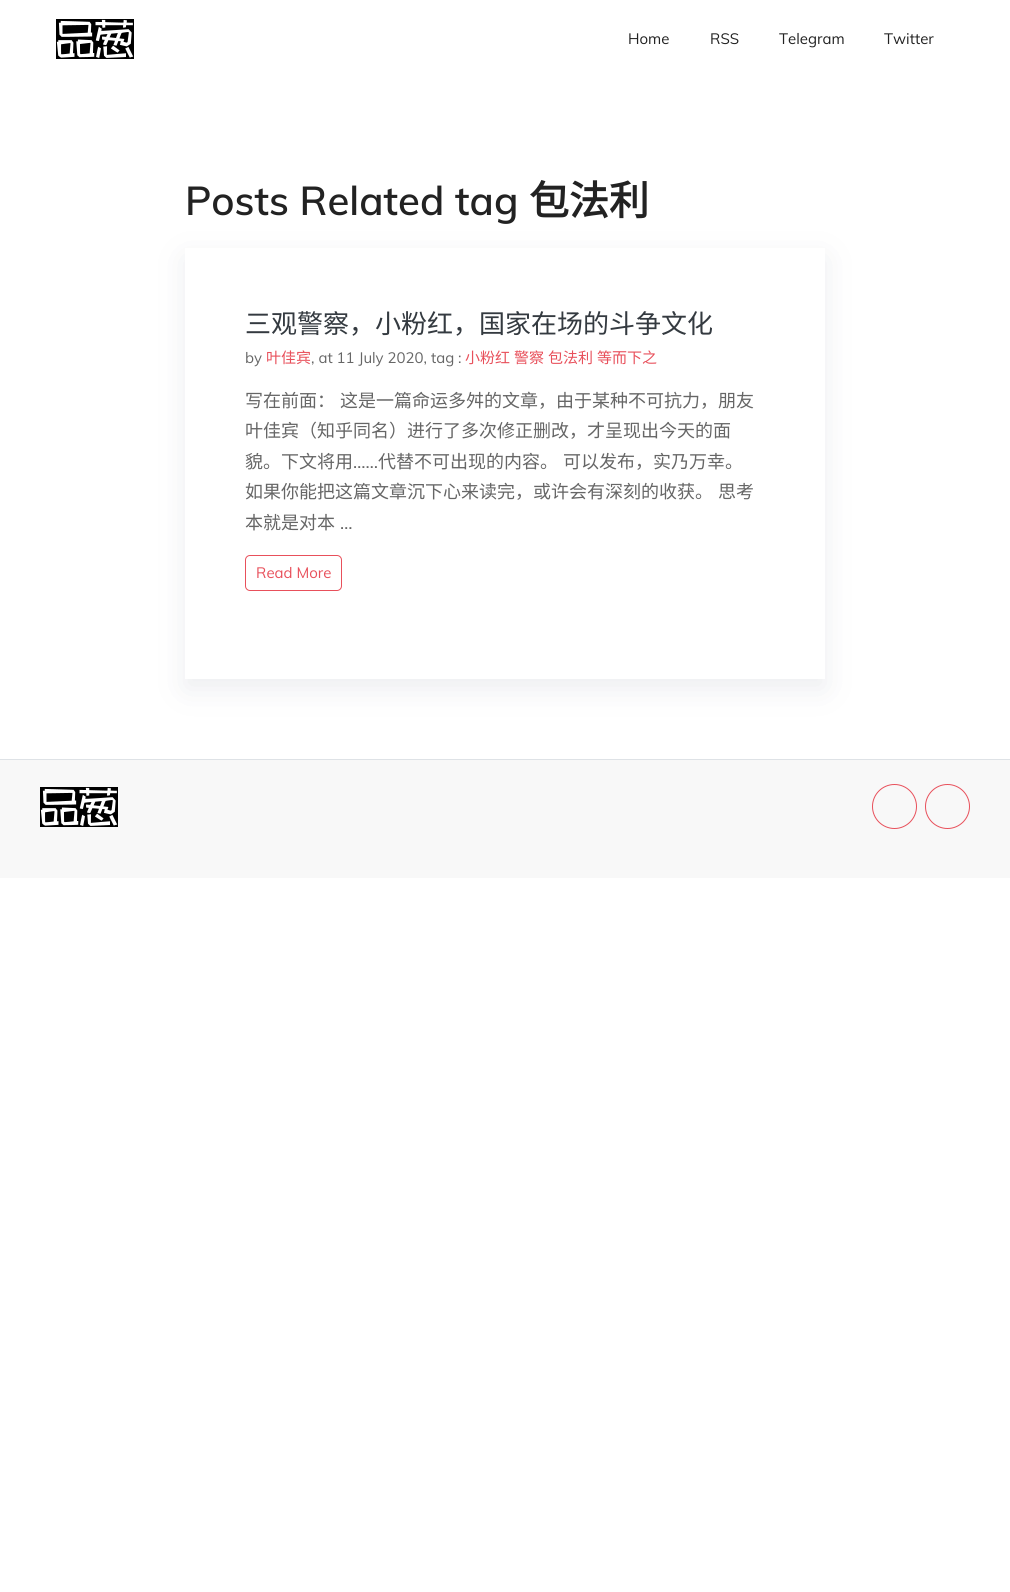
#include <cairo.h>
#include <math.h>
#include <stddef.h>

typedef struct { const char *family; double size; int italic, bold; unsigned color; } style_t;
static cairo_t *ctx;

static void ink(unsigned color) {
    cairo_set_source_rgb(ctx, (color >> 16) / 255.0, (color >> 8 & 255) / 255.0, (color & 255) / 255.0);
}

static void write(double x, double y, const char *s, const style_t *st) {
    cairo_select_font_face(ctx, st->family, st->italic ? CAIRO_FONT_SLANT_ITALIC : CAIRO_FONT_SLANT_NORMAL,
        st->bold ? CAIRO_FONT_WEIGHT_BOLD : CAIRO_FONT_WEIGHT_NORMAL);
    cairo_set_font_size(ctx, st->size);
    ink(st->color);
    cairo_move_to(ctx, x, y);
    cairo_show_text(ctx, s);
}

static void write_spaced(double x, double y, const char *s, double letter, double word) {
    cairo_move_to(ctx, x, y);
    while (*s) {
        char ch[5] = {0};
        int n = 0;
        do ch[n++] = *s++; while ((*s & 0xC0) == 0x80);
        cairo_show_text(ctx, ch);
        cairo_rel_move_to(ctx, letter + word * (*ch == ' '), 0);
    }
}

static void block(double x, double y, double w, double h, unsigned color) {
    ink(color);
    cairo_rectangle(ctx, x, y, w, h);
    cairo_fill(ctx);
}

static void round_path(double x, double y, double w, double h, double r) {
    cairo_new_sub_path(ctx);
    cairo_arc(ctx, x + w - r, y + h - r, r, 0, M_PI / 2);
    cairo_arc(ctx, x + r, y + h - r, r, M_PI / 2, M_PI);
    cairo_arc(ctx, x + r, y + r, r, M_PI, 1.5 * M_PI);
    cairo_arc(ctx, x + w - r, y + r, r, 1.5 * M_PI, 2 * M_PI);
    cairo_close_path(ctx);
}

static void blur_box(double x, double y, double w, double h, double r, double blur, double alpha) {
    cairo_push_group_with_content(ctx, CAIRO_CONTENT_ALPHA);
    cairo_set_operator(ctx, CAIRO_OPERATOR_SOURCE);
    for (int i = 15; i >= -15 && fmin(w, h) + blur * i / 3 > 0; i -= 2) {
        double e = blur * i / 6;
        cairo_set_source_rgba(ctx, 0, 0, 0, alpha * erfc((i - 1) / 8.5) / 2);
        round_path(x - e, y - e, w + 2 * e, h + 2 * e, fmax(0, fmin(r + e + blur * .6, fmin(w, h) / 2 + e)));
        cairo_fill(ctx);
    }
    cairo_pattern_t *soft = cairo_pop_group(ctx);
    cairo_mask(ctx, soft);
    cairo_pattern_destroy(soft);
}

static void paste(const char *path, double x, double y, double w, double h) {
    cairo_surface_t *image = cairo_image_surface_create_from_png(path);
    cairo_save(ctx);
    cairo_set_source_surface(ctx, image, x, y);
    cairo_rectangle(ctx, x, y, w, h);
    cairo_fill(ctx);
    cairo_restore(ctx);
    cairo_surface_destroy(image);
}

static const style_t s1 = {"Muli", 15, 0, 0, 0x222222};
static const style_t s2 = {"Muli SemiBold", 40, 0, 0, 0x222222};
static const style_t s3 = {"Noto Sans CJK SC", 40, 0, 1, 0x222222};
static const style_t s4 = {"Noto Sans CJK SC", 26, 0, 0, 0x343a40};
static const style_t s5 = {"Muli", 15, 0, 0, 0x666666};
static const style_t s6 = {"Noto Sans CJK SC", 15, 0, 0, 0xe8505b};
static const style_t s7 = {"Noto Sans CJK SC", 18, 0, 0, 0x666666};
static const style_t s8 = {"Muli", 18, 0, 0, 0x666666};
static const style_t s9 = {"Muli", 15, 0, 0, 0xe8505b};

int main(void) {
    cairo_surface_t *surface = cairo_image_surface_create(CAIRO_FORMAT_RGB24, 1010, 1592);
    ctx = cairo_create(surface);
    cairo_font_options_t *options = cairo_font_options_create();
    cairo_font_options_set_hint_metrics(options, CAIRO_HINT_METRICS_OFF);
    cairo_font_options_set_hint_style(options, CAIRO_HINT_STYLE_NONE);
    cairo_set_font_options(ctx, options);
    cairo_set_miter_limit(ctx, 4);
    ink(0xffffff);
    cairo_paint(ctx);
    paste("pic1.png", 56, 19, 78, 40);
    write(628, 44, "Home", &s1);
    write(710, 44, "RSS", &s1);
    write(779, 44, "Telegram", &s1);
    write(884, 44, "Twitter", &s1);
    cairo_save(ctx);
    cairo_set_fill_rule(ctx, CAIRO_FILL_RULE_EVEN_ODD);
    cairo_new_path(ctx);
    cairo_move_to(ctx, 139, 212);
    cairo_line_to(ctx, 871, 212);
    cairo_line_to(ctx, 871, 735);
    cairo_line_to(ctx, 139, 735);
    cairo_close_path(ctx);
    cairo_move_to(ctx, 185, 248);
    cairo_line_to(ctx, 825, 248);
    cairo_line_to(ctx, 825, 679);
    cairo_line_to(ctx, 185, 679);
    cairo_close_path(ctx);
    cairo_clip(ctx);
    ink(0x444a66);
    blur_box(185, 258, 640, 431, 0, 15, 0.1);
    cairo_restore(ctx);
    write(185, 215, "Posts Related tag", &s2);
    write(529, 215, "包法利", &s3);
    write(245, 333, "三观警察，小粉红，国家在场的斗争文化", &s4);
    write(245, 363, "by", &s5);
    write(266, 363, "叶佳宾", &s6);
    write(311, 363, ", at 11 July 2020, tag :", &s5);
    write(465, 363, "小粉红", &s6);
    write(514, 363, "警察", &s6);
    write(548, 363, "包法利", &s6);
    write(597, 363, "等而下之", &s6);
    cairo_set_font_size(ctx, 18);
    ink(0x666666);
    write_spaced(245, 407, "写在前面： 这是一篇命运多舛的文章，由于某种不可抗力，朋友", 0, 1);
    write(245, 437, "叶佳宾（知乎同名）进行了多次修正删改，才呈现出今天的面", &s7);
    write(245, 468, "貌。下文将用", &s7);
    write(353, 468, "……", &s8);
    cairo_select_font_face(ctx, "Noto Sans CJK SC", CAIRO_FONT_SLANT_NORMAL, CAIRO_FONT_WEIGHT_NORMAL);
    write_spaced(378, 468, "代替不可出现的内容。 可以发布，实乃万幸。", 0, 1);
    write_spaced(245, 498, "如果你能把这篇文章沉下心来读完，或许会有深刻的收获。 思考", 0, 1);
    write(245, 529, "本就是对本", &s7);
    write(340, 529, "…", &s8);
    round_path(245.5, 555.5, 96, 35, 4.5);
    ink(0xe8505b);
    cairo_set_line_width(ctx, 1);
    cairo_stroke(ctx);
    write(256, 578, "Read More", &s9);
    block(0, 760, 1010, 118, 0xf8f8f8);
    block(0, 759, 1010, 1, 0xdee2e6);
    paste("pic1.png", 40, 787, 78, 40);
    cairo_arc(ctx, 894.5, 806.5, 22, 0, 2 * M_PI);
    ink(0xe8505b);
    cairo_stroke(ctx);
    cairo_arc(ctx, 947.5, 806.5, 22, 0, 2 * M_PI);
    cairo_stroke(ctx);
    cairo_surface_write_to_png(surface, "screenshot.png");
    cairo_font_options_destroy(options);
    cairo_destroy(ctx);
    cairo_surface_destroy(surface);
    return 0;
}
